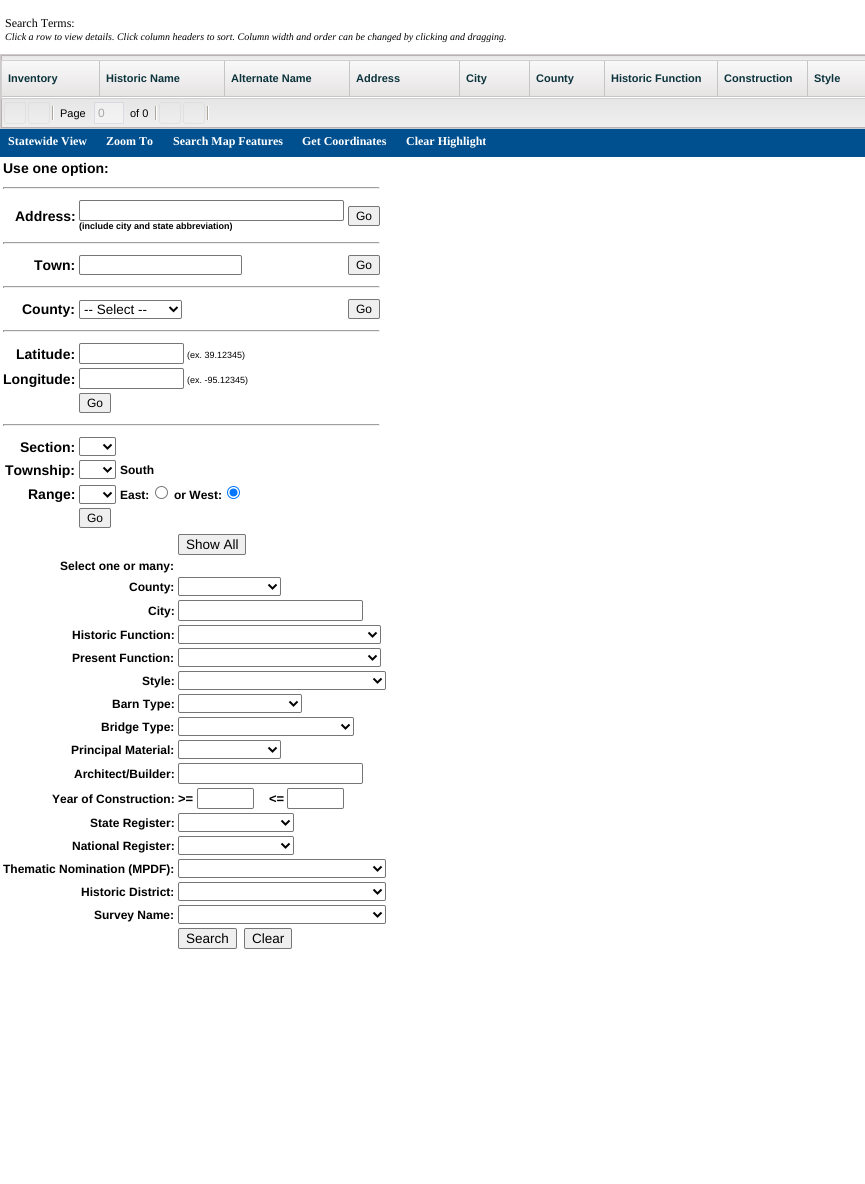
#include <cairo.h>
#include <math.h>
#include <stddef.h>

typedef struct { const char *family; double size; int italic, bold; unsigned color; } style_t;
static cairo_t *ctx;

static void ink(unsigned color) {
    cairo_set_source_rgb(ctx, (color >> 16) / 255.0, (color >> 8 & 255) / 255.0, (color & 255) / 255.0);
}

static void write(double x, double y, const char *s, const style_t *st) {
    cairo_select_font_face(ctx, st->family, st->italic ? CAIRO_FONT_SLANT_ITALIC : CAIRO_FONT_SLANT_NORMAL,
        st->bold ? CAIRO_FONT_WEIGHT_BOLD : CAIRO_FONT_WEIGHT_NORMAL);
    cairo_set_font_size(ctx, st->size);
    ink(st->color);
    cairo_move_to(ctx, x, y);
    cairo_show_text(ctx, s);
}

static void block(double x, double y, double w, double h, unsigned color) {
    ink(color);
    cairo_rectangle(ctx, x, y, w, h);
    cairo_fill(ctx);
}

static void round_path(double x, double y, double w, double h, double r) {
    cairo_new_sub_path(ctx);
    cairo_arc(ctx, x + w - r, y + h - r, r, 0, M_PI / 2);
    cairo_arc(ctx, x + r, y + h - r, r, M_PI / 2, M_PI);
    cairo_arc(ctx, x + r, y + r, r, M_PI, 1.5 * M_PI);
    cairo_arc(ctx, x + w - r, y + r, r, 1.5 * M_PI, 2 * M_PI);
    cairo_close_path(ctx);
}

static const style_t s1 = {"Liberation Serif", 12, 0, 0, 0x000000};
static const style_t s2 = {"Liberation Serif", 10, 1, 0, 0x000000};
static const style_t s3 = {"Liberation Sans", 11, 0, 1, 0x0b333c};
static const style_t s4 = {"Liberation Sans", 11, 0, 0, 0x000000};
static const style_t s5 = {"Liberation Sans", 12, 0, 0, 0xa8a8a8};
static const style_t s6 = {"Liberation Serif", 12, 0, 1, 0xffffff};
static const style_t s7 = {"Liberation Sans", 14, 0, 1, 0x000000};
static const style_t s8 = {"Liberation Sans", 12, 0, 0, 0x000000};
static const style_t s9 = {"Liberation Sans", 9, 0, 1, 0x000000};
static const style_t s10 = {"Liberation Sans", 13.5, 0, 0, 0x000000};
static const style_t s11 = {"Liberation Sans", 9, 0, 0, 0x000000};
static const style_t s12 = {"Liberation Sans", 12, 0, 1, 0x000000};
static const style_t s13 = {"Liberation Sans", 13, 0, 1, 0x000000};

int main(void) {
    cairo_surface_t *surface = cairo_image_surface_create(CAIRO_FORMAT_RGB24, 865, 1184);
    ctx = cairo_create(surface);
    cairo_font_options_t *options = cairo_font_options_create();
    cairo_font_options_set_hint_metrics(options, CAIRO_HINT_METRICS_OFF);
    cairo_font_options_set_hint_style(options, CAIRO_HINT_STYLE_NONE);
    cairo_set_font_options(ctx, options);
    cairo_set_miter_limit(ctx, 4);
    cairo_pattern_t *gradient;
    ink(0xffffff);
    cairo_paint(ctx);
    write(5, 27, "Search Terms:", &s1);
    write(5, 40, "Click a row to view details. Click column headers to sort. Column width and order can be changed by clicking and dragging.", &s2);
    cairo_rectangle(ctx, 0.5, 54.5, 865, 74);
    ink(0xcccccc);
    cairo_set_line_width(ctx, 1);
    cairo_stroke(ctx);
    gradient = cairo_pattern_create_linear(675, 56, 675, 60);
    cairo_pattern_add_color_stop_rgba(gradient, 0, 0.902, 0.902, 0.902, 1);
    cairo_pattern_add_color_stop_rgba(gradient, 1, 0.937, 0.937, 0.937, 1);
    cairo_set_source(ctx, gradient);
    cairo_pattern_destroy(gradient);
    cairo_rectangle(ctx, 2, 56, 863, 4);
    cairo_fill(ctx);
    block(1, 55, 864, 1, 0xbcb0b0);
    block(1, 55, 1, 5, 0xbcb0b0);
    block(1, 60, 864, 1, 0xd0d0d0);
    block(1, 60, 1, 36, 0xd0d0d0);
    gradient = cairo_pattern_create_linear(51, 61, 51, 96);
    cairo_pattern_add_color_stop_rgba(gradient, 0, 0.976, 0.976, 0.976, 1);
    cairo_pattern_add_color_stop_rgba(gradient, 1, 0.902, 0.89, 0.89, 1);
    cairo_set_source(ctx, gradient);
    cairo_pattern_destroy(gradient);
    cairo_rectangle(ctx, 2, 61, 97, 35);
    cairo_fill(ctx);
    block(99, 61, 1, 35, 0xc5c5c5);
    write(8, 82, "Inventory", &s3);
    gradient = cairo_pattern_create_linear(162, 61, 162, 96);
    cairo_pattern_add_color_stop_rgba(gradient, 0, 0.976, 0.976, 0.976, 1);
    cairo_pattern_add_color_stop_rgba(gradient, 1, 0.902, 0.89, 0.89, 1);
    cairo_set_source(ctx, gradient);
    cairo_pattern_destroy(gradient);
    cairo_rectangle(ctx, 100, 61, 124, 35);
    cairo_fill(ctx);
    block(224, 61, 1, 35, 0xc5c5c5);
    write(106, 82, "Historic Name", &s3);
    gradient = cairo_pattern_create_linear(287, 61, 287, 96);
    cairo_pattern_add_color_stop_rgba(gradient, 0, 0.976, 0.976, 0.976, 1);
    cairo_pattern_add_color_stop_rgba(gradient, 1, 0.902, 0.89, 0.89, 1);
    cairo_set_source(ctx, gradient);
    cairo_pattern_destroy(gradient);
    cairo_rectangle(ctx, 225, 61, 124, 35);
    cairo_fill(ctx);
    block(349, 61, 1, 35, 0xc5c5c5);
    write(231, 82, "Alternate Name", &s3);
    gradient = cairo_pattern_create_linear(405, 61, 405, 96);
    cairo_pattern_add_color_stop_rgba(gradient, 0, 0.976, 0.976, 0.976, 1);
    cairo_pattern_add_color_stop_rgba(gradient, 1, 0.902, 0.89, 0.89, 1);
    cairo_set_source(ctx, gradient);
    cairo_pattern_destroy(gradient);
    cairo_rectangle(ctx, 350, 61, 109, 35);
    cairo_fill(ctx);
    block(459, 61, 1, 35, 0xc5c5c5);
    write(356, 82, "Address", &s3);
    gradient = cairo_pattern_create_linear(495, 61, 495, 96);
    cairo_pattern_add_color_stop_rgba(gradient, 0, 0.976, 0.976, 0.976, 1);
    cairo_pattern_add_color_stop_rgba(gradient, 1, 0.902, 0.89, 0.89, 1);
    cairo_set_source(ctx, gradient);
    cairo_pattern_destroy(gradient);
    cairo_rectangle(ctx, 460, 61, 69, 35);
    cairo_fill(ctx);
    block(529, 61, 1, 35, 0xc5c5c5);
    write(466, 82, "City", &s3);
    gradient = cairo_pattern_create_linear(567, 61, 567, 96);
    cairo_pattern_add_color_stop_rgba(gradient, 0, 0.976, 0.976, 0.976, 1);
    cairo_pattern_add_color_stop_rgba(gradient, 1, 0.902, 0.89, 0.89, 1);
    cairo_set_source(ctx, gradient);
    cairo_pattern_destroy(gradient);
    cairo_rectangle(ctx, 530, 61, 74, 35);
    cairo_fill(ctx);
    block(604, 61, 1, 35, 0xc5c5c5);
    write(536, 82, "County", &s3);
    gradient = cairo_pattern_create_linear(661, 61, 661, 96);
    cairo_pattern_add_color_stop_rgba(gradient, 0, 0.976, 0.976, 0.976, 1);
    cairo_pattern_add_color_stop_rgba(gradient, 1, 0.902, 0.89, 0.89, 1);
    cairo_set_source(ctx, gradient);
    cairo_pattern_destroy(gradient);
    cairo_rectangle(ctx, 605, 61, 112, 35);
    cairo_fill(ctx);
    block(717, 61, 1, 35, 0xc5c5c5);
    write(611, 82, "Historic Function", &s3);
    gradient = cairo_pattern_create_linear(763, 61, 763, 96);
    cairo_pattern_add_color_stop_rgba(gradient, 0, 0.976, 0.976, 0.976, 1);
    cairo_pattern_add_color_stop_rgba(gradient, 1, 0.902, 0.89, 0.89, 1);
    cairo_set_source(ctx, gradient);
    cairo_pattern_destroy(gradient);
    cairo_rectangle(ctx, 718, 61, 89, 35);
    cairo_fill(ctx);
    block(807, 61, 1, 35, 0xc5c5c5);
    write(724, 82, "Construction", &s3);
    gradient = cairo_pattern_create_linear(848, 61, 848, 96);
    cairo_pattern_add_color_stop_rgba(gradient, 0, 0.976, 0.976, 0.976, 1);
    cairo_pattern_add_color_stop_rgba(gradient, 1, 0.902, 0.89, 0.89, 1);
    cairo_set_source(ctx, gradient);
    cairo_pattern_destroy(gradient);
    cairo_rectangle(ctx, 808, 61, 57, 35);
    cairo_fill(ctx);
    write(814, 82, "Style", &s3);
    block(1, 96, 864, 1, 0xc5c5c5);
    block(1, 98, 864, 1, 0xd0d0d0);
    block(1, 96, 1, 3, 0xd0d0d0);
    gradient = cairo_pattern_create_linear(675, 99, 675, 127);
    cairo_pattern_add_color_stop_rgba(gradient, 0, 0.902, 0.902, 0.902, 1);
    cairo_pattern_add_color_stop_rgba(gradient, 1, 0.937, 0.937, 0.937, 1);
    cairo_set_source(ctx, gradient);
    cairo_pattern_destroy(gradient);
    cairo_rectangle(ctx, 2, 99, 863, 28);
    cairo_fill(ctx);
    gradient = cairo_pattern_create_linear(675, 99, 675, 127);
    cairo_pattern_add_color_stop_rgba(gradient, 0, 0.933, 0.933, 0.933, 1);
    cairo_pattern_add_color_stop_rgba(gradient, 1, 0.957, 0.957, 0.957, 1);
    cairo_set_source(ctx, gradient);
    cairo_pattern_destroy(gradient);
    cairo_rectangle(ctx, 95, 103, 28, 20);
    cairo_fill(ctx);
    block(1, 127, 864, 1, 0xbcb0b0);
    block(1, 99, 1, 29, 0xbcb0b0);
    round_path(4.5, 102.5, 21, 21, 2.5);
    cairo_set_source_rgba(ctx, 0.843, 0.843, 0.843, 0.5);
    cairo_stroke(ctx);
    round_path(28.5, 102.5, 21, 21, 2.5);
    cairo_stroke(ctx);
    block(53, 106, 1, 14, 0xffffff);
    block(52, 106, 1, 14, 0xaca899);
    write(60, 117, "Page", &s4);
    cairo_rectangle(ctx, 94.5, 102.5, 29, 21);
    cairo_set_source_rgba(ctx, 0.71, 0.722, 0.784, 0.3);
    cairo_stroke(ctx);
    write(98, 117, "0", &s5);
    write(130, 117, "of 0", &s4);
    block(156, 106, 1, 14, 0xffffff);
    block(155, 106, 1, 14, 0xaca899);
    round_path(159.5, 102.5, 21, 21, 2.5);
    cairo_set_source_rgba(ctx, 0.843, 0.843, 0.843, 0.5);
    cairo_stroke(ctx);
    round_path(183.5, 102.5, 21, 21, 2.5);
    cairo_stroke(ctx);
    block(208, 106, 1, 14, 0xffffff);
    block(207, 106, 1, 14, 0xaca899);
    block(0, 129, 865, 28, 0x00508f);
    write(8, 145, "Statewide View", &s6);
    write(106, 145, "Zoom To", &s6);
    write(173, 145, "Search Map Features", &s6);
    write(302, 145, "Get Coordinates", &s6);
    write(406, 145, "Clear Highlight", &s6);
    write(3, 173, "Use one option:", &s7);
    block(3, 187, 377, 1, 0x9f9f9f);
    block(379, 187, 1, 2, 0xeeeeee);
    block(3, 188, 377, 1, 0xeeeeee);
    block(3, 187, 1, 2, 0x9f9f9f);
    write(15, 221, "Address:", &s7);
    ink(0xefefef);
    round_path(348.5, 206.5, 31, 19, 1.5);
    cairo_fill_preserve(ctx);
    ink(0x767676);
    cairo_stroke(ctx);
    write(356, 220, "Go", &s8);
    round_path(79.5, 200.5, 264, 20, 1.5);
    ink(0x767676);
    cairo_stroke(ctx);
    write(79, 229, "(include city and state abbreviation)", &s9);
    block(3, 242, 377, 1, 0x9f9f9f);
    block(379, 242, 1, 2, 0xeeeeee);
    block(3, 243, 377, 1, 0xeeeeee);
    block(3, 242, 1, 2, 0x9f9f9f);
    write(34, 270, "Town:", &s7);
    round_path(79.5, 255.5, 162, 19, 1.5);
    ink(0x767676);
    cairo_stroke(ctx);
    ink(0xefefef);
    round_path(348.5, 255.5, 31, 19, 1.5);
    cairo_fill_preserve(ctx);
    ink(0x767676);
    cairo_stroke(ctx);
    write(356, 269, "Go", &s8);
    block(3, 286, 377, 1, 0x9f9f9f);
    block(379, 286, 1, 2, 0xeeeeee);
    block(3, 287, 377, 1, 0xeeeeee);
    block(3, 286, 1, 2, 0x9f9f9f);
    write(22, 314, "County:", &s7);
    round_path(79.5, 300.5, 102, 18, 1.5);
    ink(0x767676);
    cairo_stroke(ctx);
    cairo_new_path(ctx);
    cairo_move_to(ctx, 169.5, 307);
    cairo_line_to(ctx, 173.5, 311);
    cairo_line_to(ctx, 177.5, 307);
    ink(0x000000);
    cairo_set_line_width(ctx, 2);
    cairo_stroke(ctx);
    write(84, 314, "-- Select --", &s10);
    ink(0xefefef);
    round_path(348.5, 299.5, 31, 19, 1.5);
    cairo_fill_preserve(ctx);
    ink(0x767676);
    cairo_set_line_width(ctx, 1);
    cairo_stroke(ctx);
    write(356, 313, "Go", &s8);
    block(3, 330, 377, 1, 0x9f9f9f);
    block(379, 330, 1, 2, 0xeeeeee);
    block(3, 331, 377, 1, 0xeeeeee);
    block(3, 330, 1, 2, 0x9f9f9f);
    write(16, 359, "Latitude:", &s7);
    round_path(79.5, 343.5, 104, 20, 1.5);
    ink(0x767676);
    cairo_stroke(ctx);
    write(187, 358, "(ex. 39.12345)", &s11);
    write(3, 384, "Longitude:", &s7);
    round_path(79.5, 368.5, 104, 20, 1.5);
    ink(0x767676);
    cairo_stroke(ctx);
    write(187, 383, "(ex. -95.12345)", &s11);
    ink(0xefefef);
    round_path(79.5, 393.5, 31, 19, 1.5);
    cairo_fill_preserve(ctx);
    ink(0x767676);
    cairo_stroke(ctx);
    write(87, 407, "Go", &s8);
    block(3, 424, 377, 1, 0x9f9f9f);
    block(379, 424, 1, 2, 0xeeeeee);
    block(3, 425, 377, 1, 0xeeeeee);
    block(3, 424, 1, 2, 0x9f9f9f);
    write(20, 452, "Section:", &s7);
    round_path(79.5, 437.5, 36, 18, 1.5);
    ink(0x767676);
    cairo_stroke(ctx);
    cairo_new_path(ctx);
    cairo_move_to(ctx, 103.5, 444.5);
    cairo_line_to(ctx, 107.5, 448.5);
    cairo_line_to(ctx, 111.5, 444.5);
    ink(0x000000);
    cairo_set_line_width(ctx, 2);
    cairo_stroke(ctx);
    write(5, 475, "Township:", &s7);
    round_path(79.5, 460.5, 36, 18, 1.5);
    ink(0x767676);
    cairo_set_line_width(ctx, 1);
    cairo_stroke(ctx);
    cairo_new_path(ctx);
    cairo_move_to(ctx, 103.5, 467.5);
    cairo_line_to(ctx, 107.5, 471.5);
    cairo_line_to(ctx, 111.5, 467.5);
    ink(0x000000);
    cairo_set_line_width(ctx, 2);
    cairo_stroke(ctx);
    write(120, 474, "South", &s12);
    write(28, 499, "Range:", &s7);
    round_path(79.5, 485.5, 36, 18, 1.5);
    ink(0x767676);
    cairo_set_line_width(ctx, 1);
    cairo_stroke(ctx);
    cairo_new_path(ctx);
    cairo_move_to(ctx, 103.5, 492.5);
    cairo_line_to(ctx, 107.5, 496.5);
    cairo_line_to(ctx, 111.5, 492.5);
    ink(0x000000);
    cairo_set_line_width(ctx, 2);
    cairo_stroke(ctx);
    write(120, 499, "East:", &s12);
    cairo_new_path(ctx);
    cairo_arc(ctx, 161.5, 492.5, 6, 0, 2 * M_PI);
    ink(0x767676);
    cairo_set_line_width(ctx, 1);
    cairo_stroke(ctx);
    write(174, 499, "or West:", &s12);
    cairo_new_path(ctx);
    cairo_arc(ctx, 233.5, 492.5, 6, 0, 2 * M_PI);
    ink(0x0075ff);
    cairo_stroke(ctx);
    cairo_arc(ctx, 233.5, 492.5, 4, 0, 2 * M_PI);
    cairo_fill(ctx);
    ink(0xefefef);
    round_path(79.5, 508.5, 31, 19, 1.5);
    cairo_fill_preserve(ctx);
    ink(0x767676);
    cairo_stroke(ctx);
    write(87, 522, "Go", &s8);
    ink(0xefefef);
    round_path(178.5, 534.5, 67, 20, 1.5);
    cairo_fill_preserve(ctx);
    ink(0x767676);
    cairo_stroke(ctx);
    write(186, 549, "Show All", &s10);
    write(60, 570, "Select one or many:", &s12);
    write(129, 591, "County:", &s12);
    round_path(178.5, 577.5, 102, 18, 1.5);
    ink(0x767676);
    cairo_stroke(ctx);
    cairo_new_path(ctx);
    cairo_move_to(ctx, 268.5, 584.5);
    cairo_line_to(ctx, 272.5, 588.5);
    cairo_line_to(ctx, 276.5, 584.5);
    ink(0x000000);
    cairo_set_line_width(ctx, 2);
    cairo_stroke(ctx);
    write(148, 615, "City:", &s12);
    round_path(178.5, 600.5, 184, 20, 1.5);
    ink(0x767676);
    cairo_set_line_width(ctx, 1);
    cairo_stroke(ctx);
    write(72, 639, "Historic Function:", &s12);
    round_path(178.5, 625.5, 202, 18, 1.5);
    ink(0x767676);
    cairo_stroke(ctx);
    cairo_new_path(ctx);
    cairo_move_to(ctx, 368.5, 632.5);
    cairo_line_to(ctx, 372.5, 636.5);
    cairo_line_to(ctx, 376.5, 632.5);
    ink(0x000000);
    cairo_set_line_width(ctx, 2);
    cairo_stroke(ctx);
    write(72, 662, "Present Function:", &s12);
    round_path(178.5, 648.5, 202, 18, 1.5);
    ink(0x767676);
    cairo_set_line_width(ctx, 1);
    cairo_stroke(ctx);
    cairo_new_path(ctx);
    cairo_move_to(ctx, 368.5, 655.5);
    cairo_line_to(ctx, 372.5, 659.5);
    cairo_line_to(ctx, 376.5, 655.5);
    ink(0x000000);
    cairo_set_line_width(ctx, 2);
    cairo_stroke(ctx);
    write(142, 685, "Style:", &s12);
    round_path(178.5, 671.5, 207, 18, 1.5);
    ink(0x767676);
    cairo_set_line_width(ctx, 1);
    cairo_stroke(ctx);
    cairo_new_path(ctx);
    cairo_move_to(ctx, 373.5, 678.5);
    cairo_line_to(ctx, 377.5, 682.5);
    cairo_line_to(ctx, 381.5, 678.5);
    ink(0x000000);
    cairo_set_line_width(ctx, 2);
    cairo_stroke(ctx);
    write(112, 708, "Barn Type:", &s12);
    round_path(178.5, 694.5, 123, 18, 1.5);
    ink(0x767676);
    cairo_set_line_width(ctx, 1);
    cairo_stroke(ctx);
    cairo_new_path(ctx);
    cairo_move_to(ctx, 289.5, 701.5);
    cairo_line_to(ctx, 293.5, 705.5);
    cairo_line_to(ctx, 297.5, 701.5);
    ink(0x000000);
    cairo_set_line_width(ctx, 2);
    cairo_stroke(ctx);
    write(101, 731, "Bridge Type:", &s12);
    round_path(178.5, 717.5, 175, 18, 1.5);
    ink(0x767676);
    cairo_set_line_width(ctx, 1);
    cairo_stroke(ctx);
    cairo_new_path(ctx);
    cairo_move_to(ctx, 341.5, 724.5);
    cairo_line_to(ctx, 345.5, 728.5);
    cairo_line_to(ctx, 349.5, 724.5);
    ink(0x000000);
    cairo_set_line_width(ctx, 2);
    cairo_stroke(ctx);
    write(71, 754, "Principal Material:", &s12);
    round_path(178.5, 740.5, 102, 18, 1.5);
    ink(0x767676);
    cairo_set_line_width(ctx, 1);
    cairo_stroke(ctx);
    cairo_new_path(ctx);
    cairo_move_to(ctx, 268.5, 747.5);
    cairo_line_to(ctx, 272.5, 751.5);
    cairo_line_to(ctx, 276.5, 747.5);
    ink(0x000000);
    cairo_set_line_width(ctx, 2);
    cairo_stroke(ctx);
    write(74, 778, "Architect/Builder:", &s12);
    round_path(178.5, 763.5, 184, 20, 1.5);
    ink(0x767676);
    cairo_set_line_width(ctx, 1);
    cairo_stroke(ctx);
    write(52, 803, "Year of Construction:", &s12);
    write(178, 803, ">=", &s13);
    round_path(197.5, 788.5, 56, 20, 1.5);
    ink(0x767676);
    cairo_stroke(ctx);
    write(269, 803, "<=", &s13);
    round_path(287.5, 788.5, 56, 20, 1.5);
    ink(0x767676);
    cairo_stroke(ctx);
    write(90, 827, "State Register:", &s12);
    round_path(178.5, 813.5, 115, 18, 1.5);
    ink(0x767676);
    cairo_stroke(ctx);
    cairo_new_path(ctx);
    cairo_move_to(ctx, 281.5, 820.5);
    cairo_line_to(ctx, 285.5, 824.5);
    cairo_line_to(ctx, 289.5, 820.5);
    ink(0x000000);
    cairo_set_line_width(ctx, 2);
    cairo_stroke(ctx);
    write(72, 850, "National Register:", &s12);
    round_path(178.5, 836.5, 115, 18, 1.5);
    ink(0x767676);
    cairo_set_line_width(ctx, 1);
    cairo_stroke(ctx);
    cairo_new_path(ctx);
    cairo_move_to(ctx, 281.5, 843.5);
    cairo_line_to(ctx, 285.5, 847.5);
    cairo_line_to(ctx, 289.5, 843.5);
    ink(0x000000);
    cairo_set_line_width(ctx, 2);
    cairo_stroke(ctx);
    write(3, 873, "Thematic Nomination (MPDF):", &s12);
    round_path(178.5, 859.5, 207, 18, 1.5);
    ink(0x767676);
    cairo_set_line_width(ctx, 1);
    cairo_stroke(ctx);
    cairo_new_path(ctx);
    cairo_move_to(ctx, 373.5, 866.5);
    cairo_line_to(ctx, 377.5, 870.5);
    cairo_line_to(ctx, 381.5, 866.5);
    ink(0x000000);
    cairo_set_line_width(ctx, 2);
    cairo_stroke(ctx);
    write(81, 896, "Historic District:", &s12);
    round_path(178.5, 882.5, 207, 18, 1.5);
    ink(0x767676);
    cairo_set_line_width(ctx, 1);
    cairo_stroke(ctx);
    cairo_new_path(ctx);
    cairo_move_to(ctx, 373.5, 889.5);
    cairo_line_to(ctx, 377.5, 893.5);
    cairo_line_to(ctx, 381.5, 889.5);
    ink(0x000000);
    cairo_set_line_width(ctx, 2);
    cairo_stroke(ctx);
    write(94, 919, "Survey Name:", &s12);
    round_path(178.5, 905.5, 207, 18, 1.5);
    ink(0x767676);
    cairo_set_line_width(ctx, 1);
    cairo_stroke(ctx);
    cairo_new_path(ctx);
    cairo_move_to(ctx, 373.5, 912.5);
    cairo_line_to(ctx, 377.5, 916.5);
    cairo_line_to(ctx, 381.5, 912.5);
    ink(0x000000);
    cairo_set_line_width(ctx, 2);
    cairo_stroke(ctx);
    ink(0xefefef);
    round_path(178.5, 928.5, 58, 20, 1.5);
    cairo_fill_preserve(ctx);
    ink(0x767676);
    cairo_set_line_width(ctx, 1);
    cairo_stroke(ctx);
    write(186, 943, "Search", &s10);
    ink(0xefefef);
    round_path(244.5, 928.5, 47, 20, 1.5);
    cairo_fill_preserve(ctx);
    ink(0x767676);
    cairo_stroke(ctx);
    write(252, 943, "Clear", &s10);
    cairo_surface_write_to_png(surface, "screenshot.png");
    cairo_font_options_destroy(options);
    cairo_destroy(ctx);
    cairo_surface_destroy(surface);
    return 0;
}
